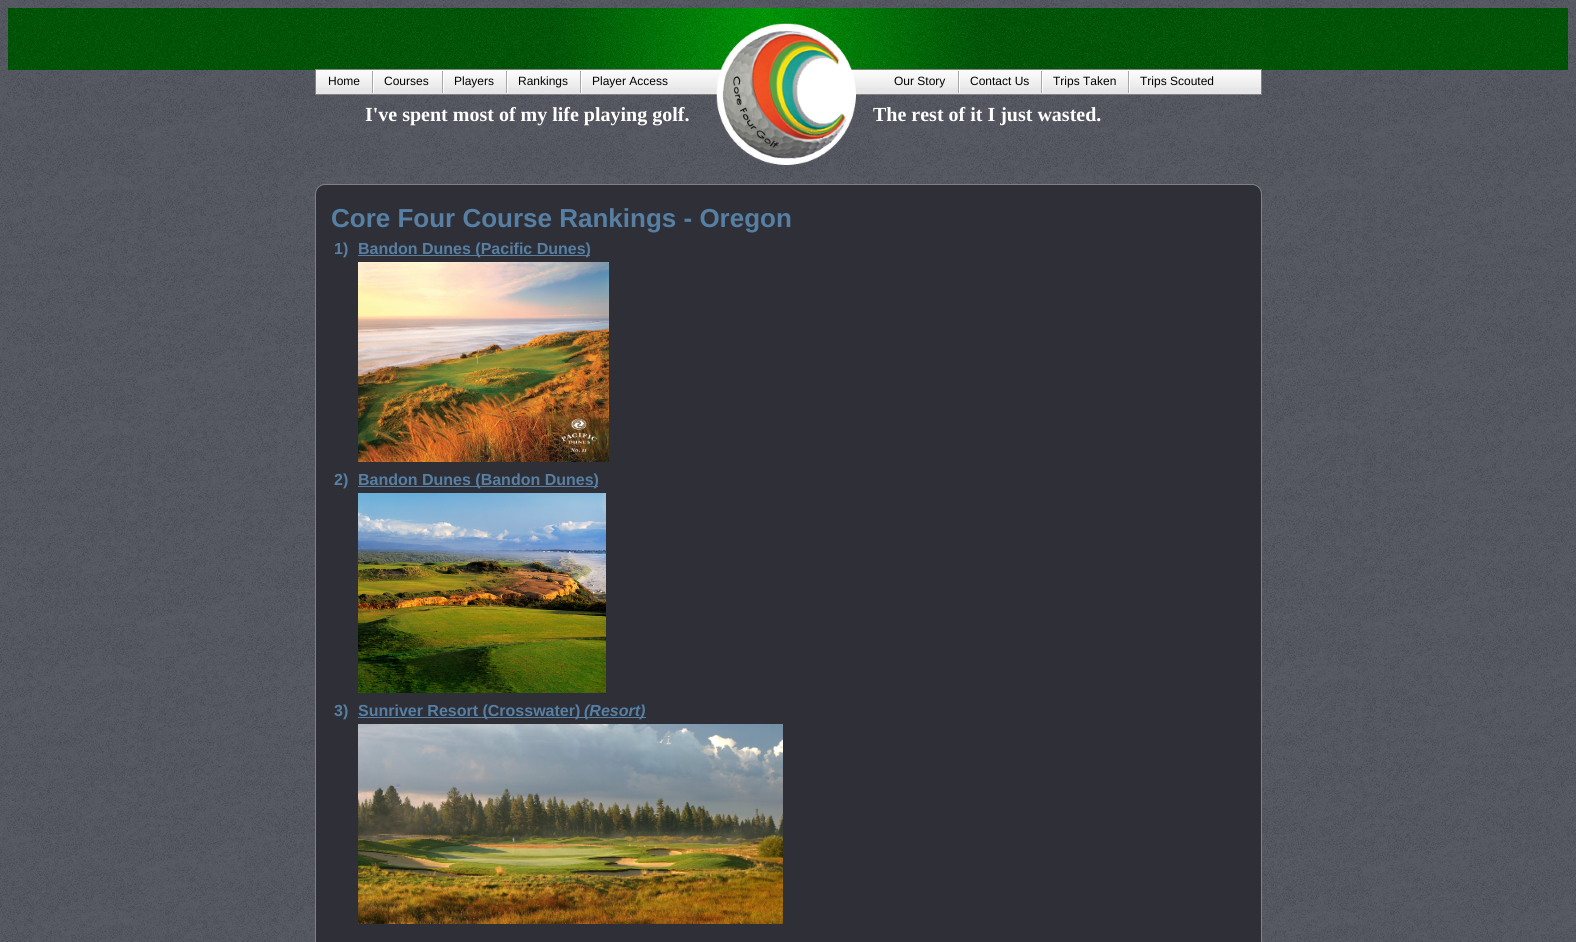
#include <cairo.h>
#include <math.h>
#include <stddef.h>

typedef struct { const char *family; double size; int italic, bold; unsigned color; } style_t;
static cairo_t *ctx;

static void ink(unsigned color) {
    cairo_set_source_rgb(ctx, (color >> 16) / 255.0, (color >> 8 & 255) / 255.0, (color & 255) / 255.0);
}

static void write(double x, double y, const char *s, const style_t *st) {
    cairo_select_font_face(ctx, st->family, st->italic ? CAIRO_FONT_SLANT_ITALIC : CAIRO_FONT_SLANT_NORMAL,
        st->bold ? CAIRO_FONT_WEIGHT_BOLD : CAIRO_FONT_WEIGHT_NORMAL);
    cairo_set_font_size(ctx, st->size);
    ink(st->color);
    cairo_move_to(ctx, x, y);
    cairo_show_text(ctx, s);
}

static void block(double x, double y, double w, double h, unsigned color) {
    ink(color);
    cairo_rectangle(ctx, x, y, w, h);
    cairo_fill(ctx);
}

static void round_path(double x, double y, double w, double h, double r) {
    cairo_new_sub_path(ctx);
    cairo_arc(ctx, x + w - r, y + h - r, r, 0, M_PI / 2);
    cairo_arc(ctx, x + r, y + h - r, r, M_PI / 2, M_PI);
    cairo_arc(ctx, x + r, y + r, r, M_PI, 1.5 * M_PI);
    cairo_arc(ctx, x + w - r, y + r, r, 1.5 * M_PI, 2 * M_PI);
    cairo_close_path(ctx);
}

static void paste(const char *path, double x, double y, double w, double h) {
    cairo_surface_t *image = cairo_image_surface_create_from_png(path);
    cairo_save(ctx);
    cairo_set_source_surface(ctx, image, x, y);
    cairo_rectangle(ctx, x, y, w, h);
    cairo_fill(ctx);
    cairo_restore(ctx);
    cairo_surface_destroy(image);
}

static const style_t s1 = {"Liberation Sans", 12, 0, 0, 0x000000};
static const style_t s2 = {"Liberation Serif", 20, 0, 1, 0xffffff};
static const style_t s3 = {"Liberation Sans", 26, 0, 1, 0x567fa3};
static const style_t s4 = {"Liberation Sans", 16, 0, 1, 0x567fa3};
static const style_t s5 = {"Liberation Sans", 16, 1, 1, 0x567fa3};

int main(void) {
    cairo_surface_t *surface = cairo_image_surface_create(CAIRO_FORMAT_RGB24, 1576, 942);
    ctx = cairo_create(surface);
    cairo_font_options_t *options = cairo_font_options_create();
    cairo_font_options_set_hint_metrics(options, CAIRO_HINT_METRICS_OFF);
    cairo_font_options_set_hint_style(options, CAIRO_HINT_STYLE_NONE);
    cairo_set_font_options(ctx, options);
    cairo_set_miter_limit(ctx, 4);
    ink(0xffffff);
    cairo_paint(ctx);
    paste("pic1.png", 0, 0, 1576, 942);
    paste("pic2.png", 8, 8, 1560, 62);
    paste("pic3.png", 315, 8, 947, 61);
    block(316, 88, 945, 6, 0xe6e6e6);
    paste("pic5.png", 316, 70, 945, 18);
    cairo_rectangle(ctx, 315.5, 69.5, 946, 25);
    ink(0x828282);
    cairo_set_line_width(ctx, 1);
    cairo_stroke(ctx);
    paste("pic4.png", 716, 23, 140, 142);
    write(328, 85, "Home", &s1);
    paste("pic6.png", 372, 71, 2, 22);
    write(384, 85, "Courses", &s1);
    paste("pic6.png", 442, 71, 2, 22);
    write(454, 85, "Players", &s1);
    paste("pic6.png", 506, 71, 2, 22);
    write(518, 85, "Rankings", &s1);
    paste("pic6.png", 580, 71, 2, 22);
    write(592, 85, "Player Access", &s1);
    write(894, 85, "Our Story", &s1);
    paste("pic6.png", 958, 71, 2, 22);
    write(970, 85, "Contact Us", &s1);
    paste("pic6.png", 1041, 71, 2, 22);
    write(1053, 85, "Trips Taken", &s1);
    paste("pic6.png", 1128, 71, 2, 22);
    write(1140, 85, "Trips Scouted", &s1);
    write(365, 121, "I've spent most of my life playing golf.", &s2);
    write(873, 121, "The rest of it I just wasted.", &s2);
    ink(0x2f3037);
    round_path(315.5, 184.5, 946, 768, 9.5);
    cairo_fill_preserve(ctx);
    ink(0x808188);
    cairo_stroke(ctx);
    write(331, 227, "Core Four Course Rankings - Oregon", &s3);
    write(334, 254, "1)", &s4);
    block(358, 255, 232, 1, 0x567fa3);
    write(358, 254, "Bandon Dunes (Pacific Dunes)", &s4);
    paste("pic7.png", 358, 262, 251, 200);
    write(334, 485, "2)", &s4);
    block(358, 486, 240, 1, 0x567fa3);
    write(358, 485, "Bandon Dunes (Bandon Dunes)", &s4);
    paste("pic8.png", 358, 493, 248, 200);
    write(334, 716, "3)", &s4);
    block(358, 717, 288, 1, 0x567fa3);
    write(358, 716, "Sunriver Resort (Crosswater)", &s4);
    write(584, 716, "(Resort)", &s5);
    paste("pic9.png", 358, 724, 425, 200);
    cairo_surface_write_to_png(surface, "screenshot.png");
    cairo_font_options_destroy(options);
    cairo_destroy(ctx);
    cairo_surface_destroy(surface);
    return 0;
}
